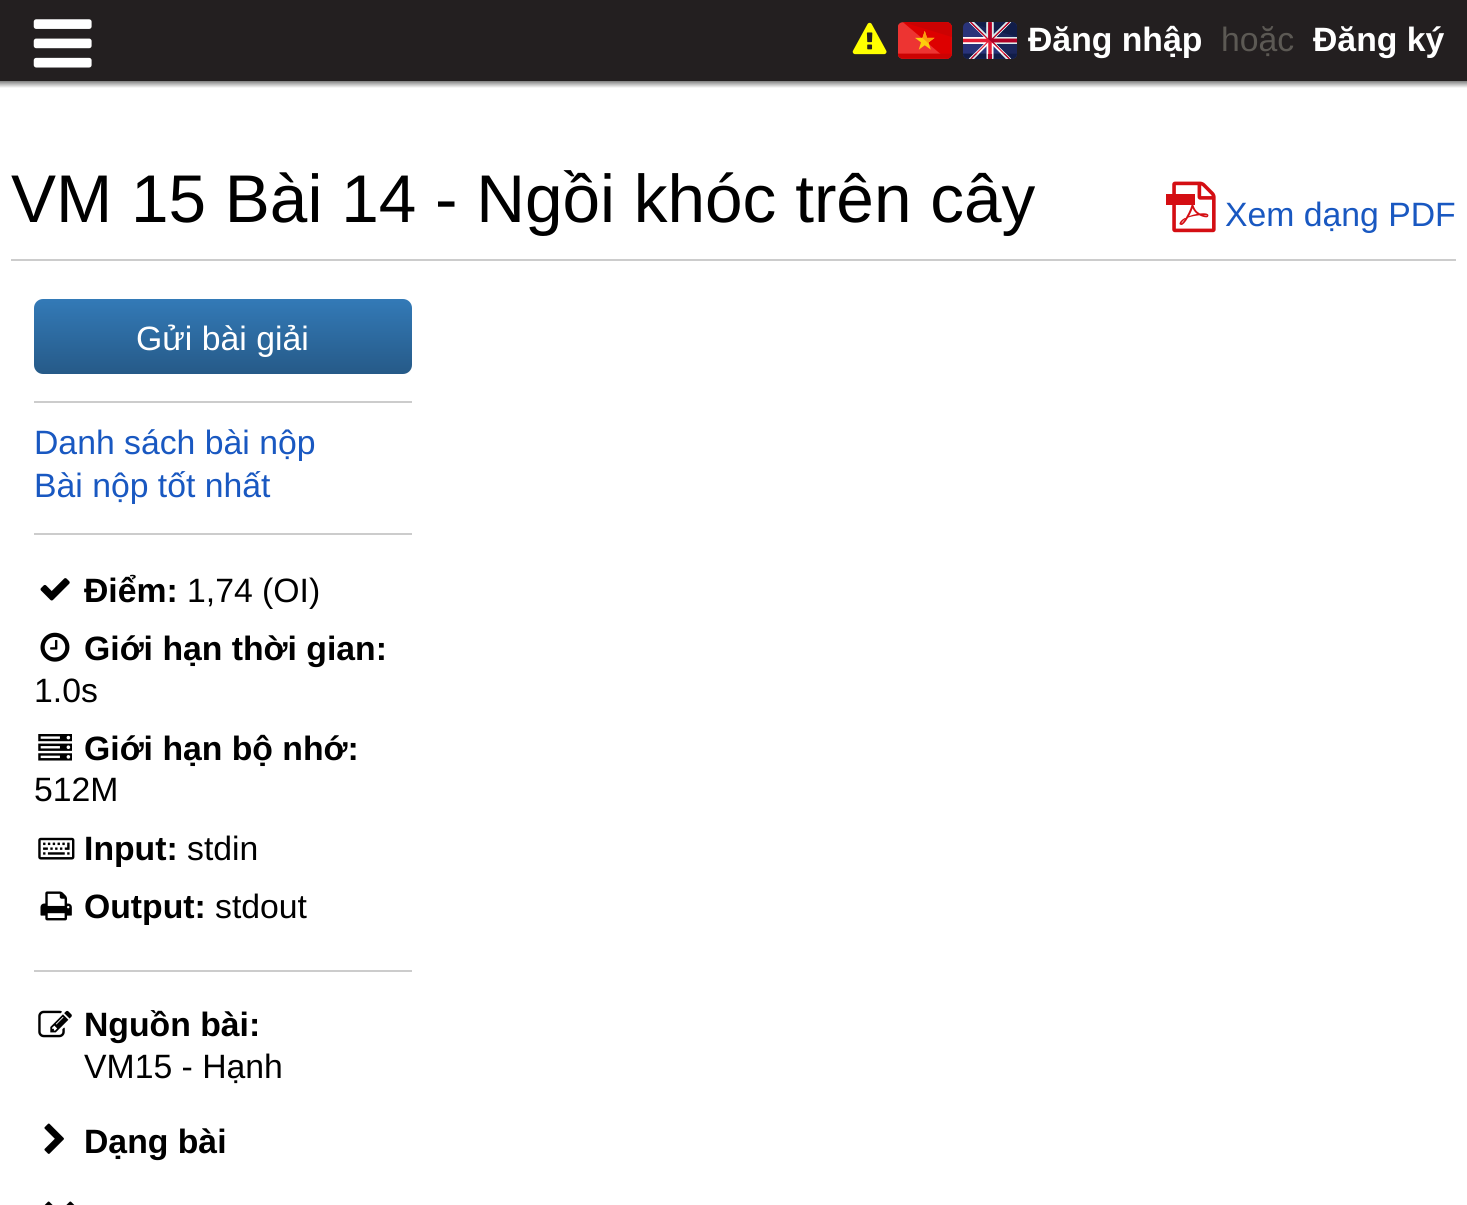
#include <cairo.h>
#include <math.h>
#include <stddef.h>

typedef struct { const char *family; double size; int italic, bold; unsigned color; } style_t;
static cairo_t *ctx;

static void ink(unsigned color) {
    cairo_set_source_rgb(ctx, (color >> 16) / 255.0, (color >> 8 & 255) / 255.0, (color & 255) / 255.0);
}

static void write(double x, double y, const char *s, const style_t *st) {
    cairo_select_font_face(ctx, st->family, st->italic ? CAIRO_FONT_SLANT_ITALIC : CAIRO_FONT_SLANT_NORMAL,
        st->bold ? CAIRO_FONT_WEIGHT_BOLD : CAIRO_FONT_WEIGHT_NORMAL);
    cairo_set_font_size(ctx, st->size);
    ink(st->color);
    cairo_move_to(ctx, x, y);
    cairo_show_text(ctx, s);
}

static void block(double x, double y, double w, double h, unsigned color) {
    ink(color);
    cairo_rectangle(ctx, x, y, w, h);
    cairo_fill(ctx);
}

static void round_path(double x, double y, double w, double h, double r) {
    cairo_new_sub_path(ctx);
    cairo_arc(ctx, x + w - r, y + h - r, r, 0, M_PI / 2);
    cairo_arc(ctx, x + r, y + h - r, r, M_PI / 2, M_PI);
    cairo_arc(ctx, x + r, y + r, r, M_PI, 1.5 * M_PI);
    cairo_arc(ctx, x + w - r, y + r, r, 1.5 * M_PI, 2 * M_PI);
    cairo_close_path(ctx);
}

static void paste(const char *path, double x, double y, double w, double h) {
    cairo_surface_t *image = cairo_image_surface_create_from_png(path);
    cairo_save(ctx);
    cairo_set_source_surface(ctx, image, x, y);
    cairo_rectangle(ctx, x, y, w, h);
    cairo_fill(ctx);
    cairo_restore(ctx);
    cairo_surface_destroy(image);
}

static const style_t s1 = {"Liberation Sans", 33.75, 0, 1, 0xffffff};
static const style_t s2 = {"Liberation Sans", 33.75, 0, 0, 0x5c5954};
static const style_t s3 = {"Liberation Sans", 67.5, 0, 0, 0x000000};
static const style_t s4 = {"Liberation Sans", 33.75, 0, 0, 0x1958c1};
static const style_t s5 = {"Liberation Sans", 33.75, 0, 0, 0xffffff};
static const style_t s6 = {"Liberation Sans", 33.75, 0, 1, 0x000000};
static const style_t s7 = {"Liberation Sans", 33.75, 0, 0, 0x000000};

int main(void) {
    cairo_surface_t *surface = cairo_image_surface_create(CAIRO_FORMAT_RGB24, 1467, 1205);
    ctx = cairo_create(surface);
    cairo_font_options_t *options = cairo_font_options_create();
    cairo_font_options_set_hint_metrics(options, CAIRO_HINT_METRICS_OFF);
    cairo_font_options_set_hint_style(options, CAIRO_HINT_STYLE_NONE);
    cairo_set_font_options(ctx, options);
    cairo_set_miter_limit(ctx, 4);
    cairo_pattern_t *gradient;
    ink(0xffffff);
    cairo_paint(ctx);
    block(0, 0, 1467, 81, 0x231f20);
    paste("pic1.png", 33, 19, 59, 49);
    paste("pic2.png", 852, 22, 35, 33);
    paste("pic3.png", 898, 22, 54, 37);
    paste("pic4.png", 963, 22, 54, 37);
    write(1028, 51, "Đăng nhập", &s1);
    write(1221, 51, "hoặc", &s2);
    write(1313, 51, "Đăng ký", &s1);
    gradient = cairo_pattern_create_linear(734, 81, 734, 88);
    cairo_pattern_add_color_stop_rgba(gradient, 0, 0.502, 0.502, 0.502, 1);
    cairo_pattern_add_color_stop_rgba(gradient, 1, 1, 1, 1, 1);
    cairo_set_source(ctx, gradient);
    cairo_pattern_destroy(gradient);
    cairo_rectangle(ctx, 0, 81, 1467, 7);
    cairo_fill(ctx);
    write(11, 222, "VM 15 Bài 14 - Ngồi khóc trên cây", &s3);
    paste("pic5.png", 1172, 181, 44, 52);
    block(1166, 194, 29, 11, 0xd40e13);
    write(1225, 226, "Xem dạng PDF", &s4);
    block(11, 259, 1445, 2, 0xcccccc);
    gradient = cairo_pattern_create_linear(223, 299, 223, 374);
    cairo_pattern_add_color_stop_rgba(gradient, 0, 0.2, 0.478, 0.718, 1);
    cairo_pattern_add_color_stop_rgba(gradient, 1, 0.149, 0.353, 0.533, 1);
    cairo_set_source(ctx, gradient);
    cairo_pattern_destroy(gradient);
    round_path(34, 299, 378, 75, 9);
    cairo_fill(ctx);
    write(136, 350, "Gửi bài giải", &s5);
    block(34, 401, 378, 2, 0xcccccc);
    write(34, 454, "Danh sách bài nộp", &s4);
    write(34, 497, "Bài nộp tốt nhất", &s4);
    block(34, 533, 378, 2, 0xcccccc);
    paste("pic6.png", 40, 578, 30, 23);
    write(84, 602, "Điểm:", &s6);
    write(187, 602, "1,74 (OI)", &s7);
    paste("pic7.png", 40, 632, 30, 30);
    write(84, 660, "Giới hạn thời gian:", &s6);
    write(34, 702, "1.0s", &s7);
    paste("pic8.png", 38, 734, 34, 27);
    write(84, 760, "Giới hạn bộ nhớ:", &s6);
    write(34, 801, "512M", &s7);
    paste("pic9.png", 38, 837, 37, 23);
    write(84, 860, "Input:", &s6);
    write(187, 860, "stdin", &s7);
    paste("pic10.png", 40, 891, 32, 30);
    write(84, 918, "Output:", &s6);
    write(215, 918, "stdout", &s7);
    block(34, 970, 378, 2, 0xcccccc);
    paste("pic11.png", 38, 1010, 34, 28);
    write(84, 1036, "Nguồn bài:", &s6);
    write(84, 1078, "VM15 - Hạnh", &s7);
    paste("pic12.png", 44, 1123, 20, 31);
    write(84, 1153, "Dạng bài", &s6);
    paste("pic13.png", 44, 1201, 31, 4);
    cairo_surface_write_to_png(surface, "screenshot.png");
    cairo_font_options_destroy(options);
    cairo_destroy(ctx);
    cairo_surface_destroy(surface);
    return 0;
}
